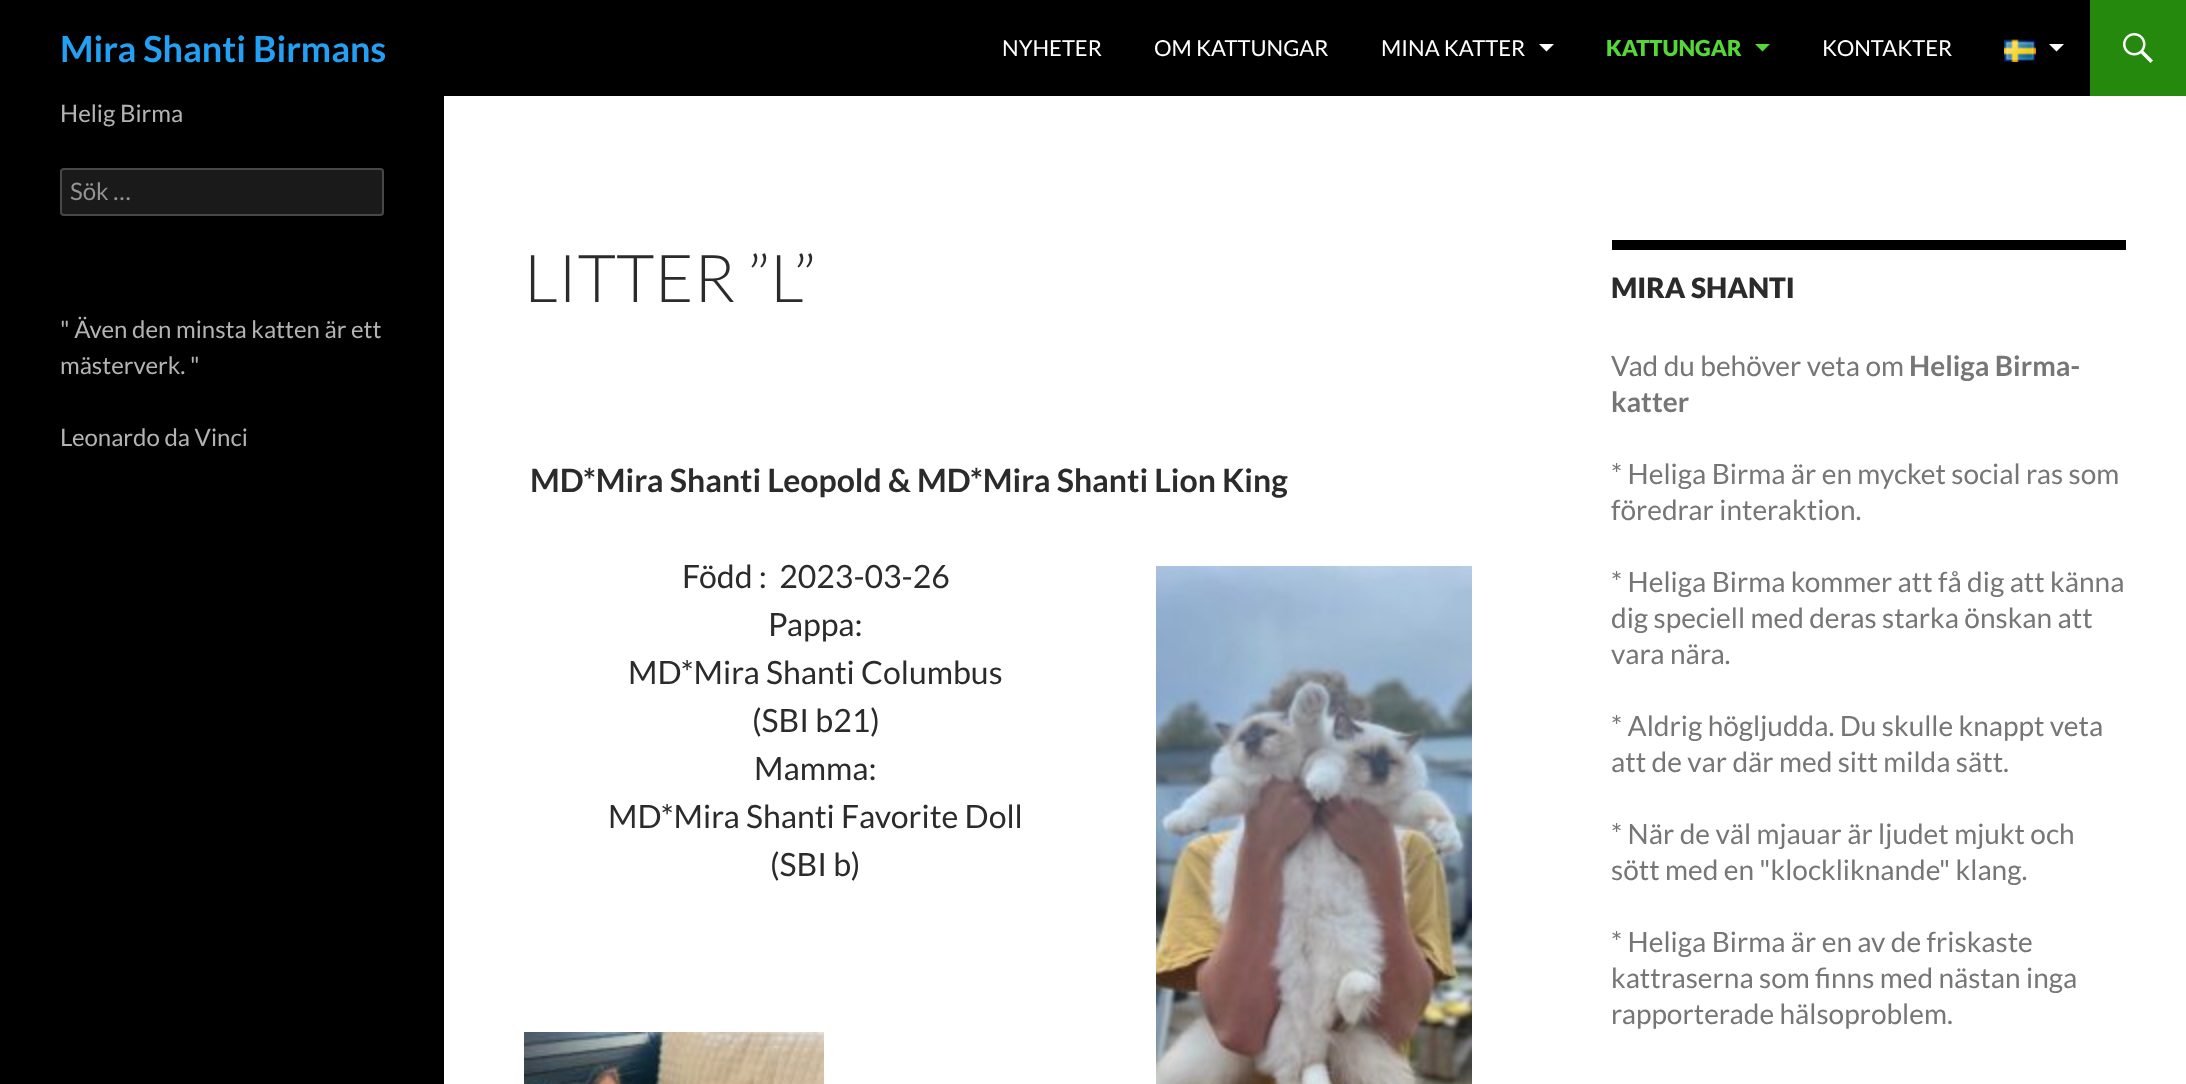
async function draw(canvas) {
  canvas.width = 2186;
  canvas.height = 1084;
  const ctx = canvas.getContext('2d');
  ctx.miterLimit = 4;
  ctx.fontKerning = 'normal';
  function label(s, x, y, font, color) {
    ctx.font = font;
    ctx.fillStyle = color;
    ctx.fillText(s, x, y);
  }
  function rect(x, y, w, h, color) {
    ctx.fillStyle = color;
    ctx.fillRect(x, y, w, h);
  }
  function roundedRect(x, y, w, h, r, color) {
    ctx.fillStyle = color;
    ctx.beginPath();
    ctx.roundRect(x, y, w, h, r);
    ctx.fill();
  }
  async function image(src, x, y, w, h) {
    const img = new Image();
    img.src = src;
    await img.decode();
    ctx.drawImage(img, x, y, w, h);
  }
  let path;

  rect(0, 0, 2186, 1084, '#fff');
  rect(0, 0, 2090, 96, '#000');
  label('Mira Shanti Birmans', 60, 62, 'bold 36px Lato', '#22a0f4');
  label('NYHETER', 1002, 56, '22px Lato', '#fff');
  label('OM KATTUNGAR', 1154, 56, '22px Lato', '#fff');
  label('MINA KATTER', 1381, 56, '22px Lato', '#fff');
  path = new Path2D('M1539 44L1546.5 51.5L1554 44Z');
  ctx.fill(path);
  label('KATTUNGAR', 1606, 56, '900 22px Lato', '#55d737');
  path = new Path2D('M1755 44L1762.5 51.5L1770 44Z');
  ctx.fill(path);
  label('KONTAKTER', 1822, 56, '22px Lato', '#fff');
  await image('assets/img1.png', 2004, 39, 32, 23);
  path = new Path2D('M2049 44L2056.5 51.5L2064 44Z');
  ctx.fill(path);
  rect(2090, 0, 96, 96, '#24890d');
  await image('assets/img2.png', 2123, 33, 30, 30);
  rect(0, 96, 444, 988, '#000');
  label('Helig Birma', 60, 122, '24px Lato', '#b3b3b3');
  roundedRect(60, 168, 324, 48, 4, '#1a1a1a');
  ctx.beginPath();
  ctx.roundRect(61, 169, 322, 46, 3);
  ctx.strokeStyle = '#ffffff33';
  ctx.lineWidth = 2;
  ctx.stroke();
  label('Sök …', 70, 200, '24px Lato', '#939393');
  label('" Även den minsta katten är ett', 60, 338, '24px Lato', '#b3b3b3');
  label('mästerverk. "', 60, 374, '24px Lato', '#b3b3b3');
  label('Leonardo da Vinci', 60, 446, '24px Lato', '#b3b3b3');
  label('LITTER ”L”', 524, 302, '300 66px Lato', '#2b2b2b');
  label('MD*Mira Shanti Leopold & MD*Mira Shanti Lion King', 530, 492, 'bold 32px Lato', '#2b2b2b');
  label('Född :  2023-03-26', 682, 588, '32px Lato', '#2b2b2b');
  await image('assets/img3.png', 1156, 566, 316, 518);
  label('Pappa:', 768, 636, '32px Lato', '#2b2b2b');
  label('MD*Mira Shanti Columbus', 628, 684, '32px Lato', '#2b2b2b');
  label('(SBI b21)', 752, 732, '32px Lato', '#2b2b2b');
  label('Mamma:', 754, 780, '32px Lato', '#2b2b2b');
  label('MD*Mira Shanti Favorite Doll', 608, 828, '32px Lato', '#2b2b2b');
  label('(SBI b)', 770, 876, '32px Lato', '#2b2b2b');
  await image('assets/img4.png', 524, 1032, 300, 52);
  rect(1612, 240, 514, 10, '#000');
  label('MIRA SHANTI', 1611, 298, '900 28px Lato', '#2b2b2b');
  label('Vad du behöver veta om', 1611, 376, '28px Lato', '#767676');
  label('Heliga Birma-', 1909, 376, 'bold 28px Lato', '#767676');
  label('katter', 1611, 412, 'bold 28px Lato', '#767676');
  label('* Heliga Birma är en mycket social ras som', 1611, 484, '28px Lato', '#767676');
  label('föredrar interaktion.', 1611, 520, '28px Lato', '#767676');
  label('* Heliga Birma kommer att få dig att känna', 1611, 592, '28px Lato', '#767676');
  label('dig speciell med deras starka önskan att', 1611, 628, '28px Lato', '#767676');
  label('vara nära.', 1611, 664, '28px Lato', '#767676');
  label('* Aldrig högljudda. Du skulle knappt veta', 1611, 736, '28px Lato', '#767676');
  label('att de var där med sitt milda sätt.', 1611, 772, '28px Lato', '#767676');
  label('* När de väl mjauar är ljudet mjukt och', 1611, 844, '28px Lato', '#767676');
  label('sött med en "klockliknande" klang.', 1611, 880, '28px Lato', '#767676');
  label('* Heliga Birma är en av de friskaste', 1611, 952, '28px Lato', '#767676');
  label('kattraserna som finns med nästan inga', 1611, 988, '28px Lato', '#767676');
  label('rapporterade hälsoproblem.', 1611, 1024, '28px Lato', '#767676');
}

draw(document.querySelector('canvas'));
